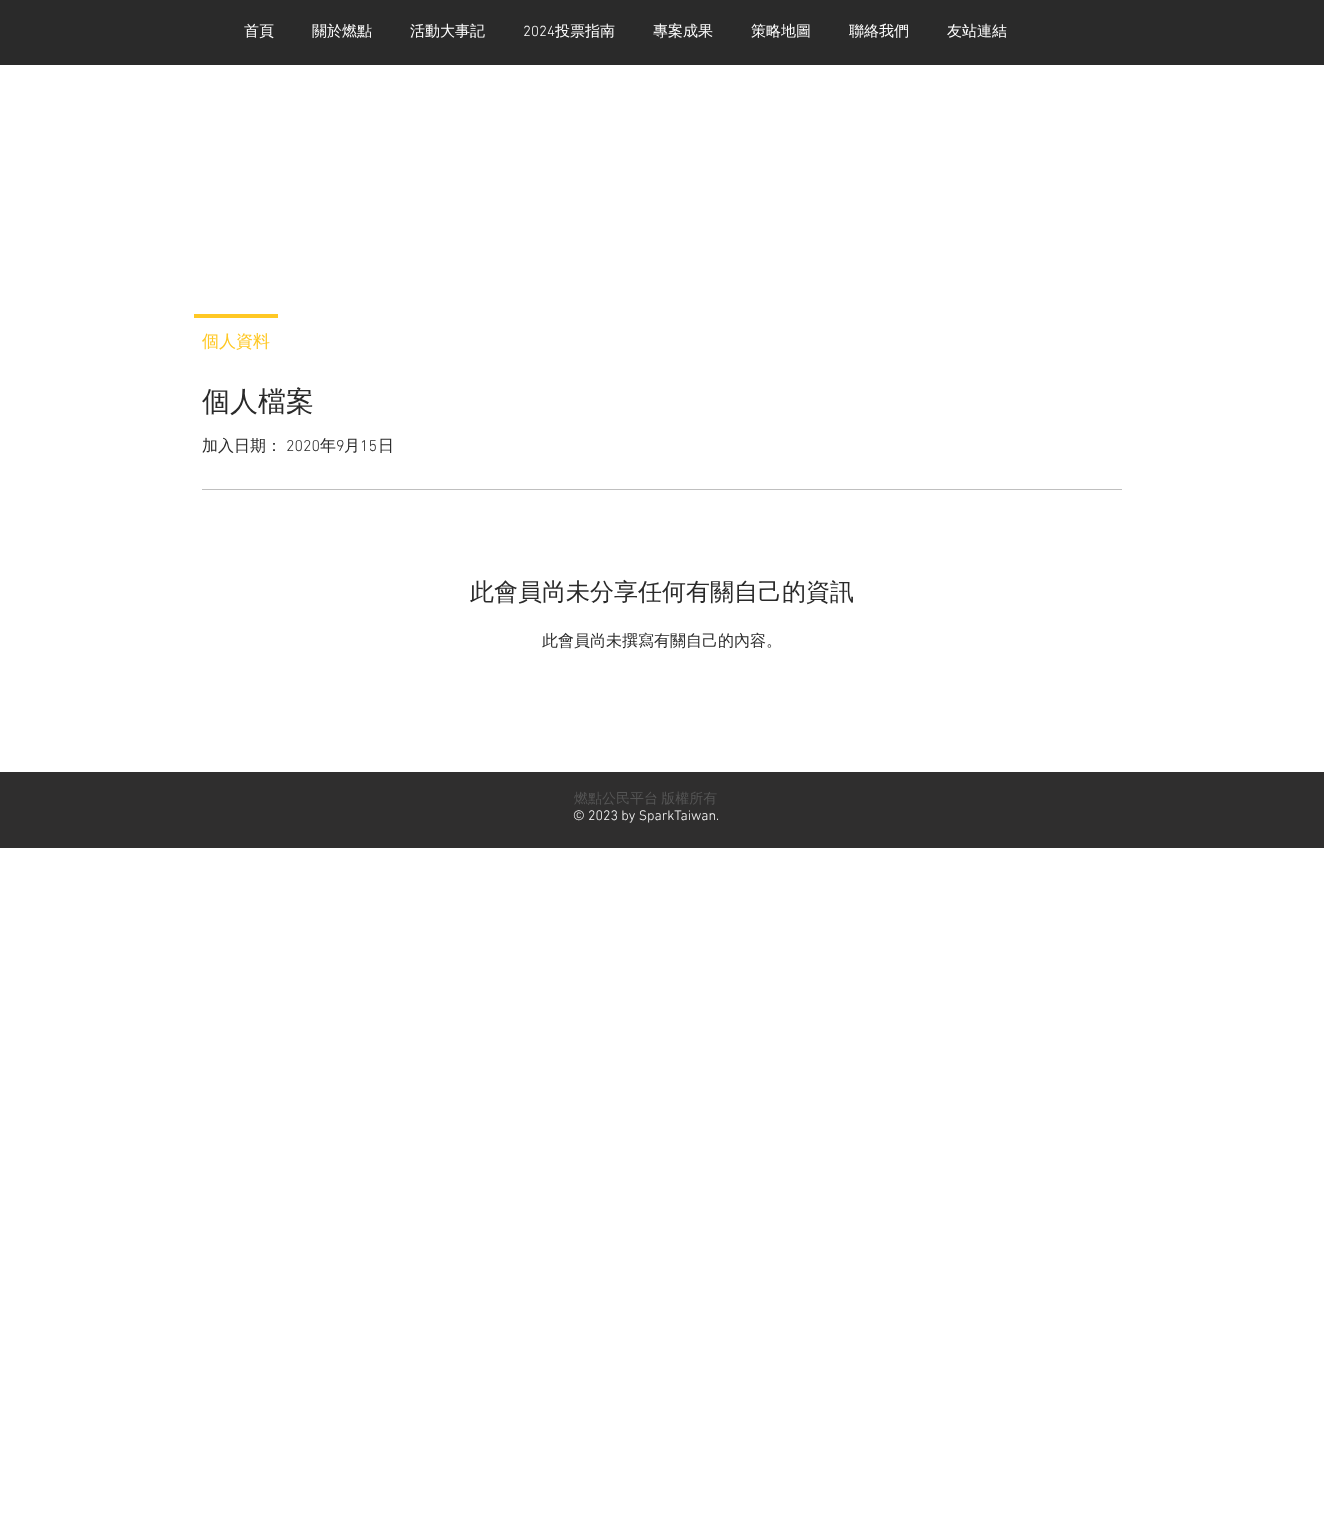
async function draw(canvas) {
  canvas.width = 1324;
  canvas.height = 1529;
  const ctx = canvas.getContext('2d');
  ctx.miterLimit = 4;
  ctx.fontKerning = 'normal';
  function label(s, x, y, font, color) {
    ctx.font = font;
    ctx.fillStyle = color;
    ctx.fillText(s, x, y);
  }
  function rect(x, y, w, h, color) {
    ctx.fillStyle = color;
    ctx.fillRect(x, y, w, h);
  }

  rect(0, 0, 1324, 1529, '#fff');
  rect(0, 0, 1324, 65, '#2a2a2a');
  label('首頁', 244, 36, '500 15px WenQuanYi Zen Hei', '#fff');
  label('關於燃點', 312, 36, '500 15px WenQuanYi Zen Hei', '#fff');
  label('活動大事記', 410, 36, '500 15px WenQuanYi Zen Hei', '#fff');
  label('2024', 523, 36, '300 15px "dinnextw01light"', '#fff');
  label('投票指南', 555, 36, '500 15px WenQuanYi Zen Hei', '#fff');
  label('專案成果', 653, 36, '500 15px WenQuanYi Zen Hei', '#fff');
  label('策略地圖', 751, 36, '500 15px WenQuanYi Zen Hei', '#fff');
  label('聯絡我們', 849, 36, '500 15px WenQuanYi Zen Hei', '#fff');
  label('友站連結', 947, 36, '500 15px WenQuanYi Zen Hei', '#fff');
  rect(194, 314, 84, 4, '#ffc824');
  label('個人資料', 202, 347, '500 17px WenQuanYi Zen Hei', '#ffc824');
  label('個人檔案', 202, 411, '500 28px WenQuanYi Zen Hei', '#2a2a2a');
  label('加入日期：', 202, 451, '500 16px WenQuanYi Zen Hei', '#2a2a2a');
  label('2020', 286, 451, '300 16px "dinnextw01light"', '#2a2a2a');
  label('年', 320, 451, '500 16px WenQuanYi Zen Hei', '#2a2a2a');
  label('9', 336, 451, '300 16px "dinnextw01light"', '#2a2a2a');
  label('月', 344, 451, '500 16px WenQuanYi Zen Hei', '#2a2a2a');
  label('15', 360, 451, '300 16px "dinnextw01light"', '#2a2a2a');
  label('日', 378, 451, '500 16px WenQuanYi Zen Hei', '#2a2a2a');
  rect(202, 489, 920, 1, '#bfbfbf');
  label('此會員尚未分享任何有關自己的資訊', 470, 600, '500 24px WenQuanYi Zen Hei', '#2a2a2a');
  label('此會員尚未撰寫有關自己的內容。', 542, 646, '500 16px WenQuanYi Zen Hei', '#2a2a2a');
  rect(0, 772, 1324, 76, '#2f2e2e');
  ctx.wordSpacing = '-1px';
  label('燃點公民平台 版權所有', 574, 803, '500 14px WenQuanYi Zen Hei', '#555');
  ctx.wordSpacing = '0px';
  label('© 2023 by SparkTaiwan.', 573, 820, '300 14px "dinnextw01light"', '#fff');
}

draw(document.querySelector('canvas'));
